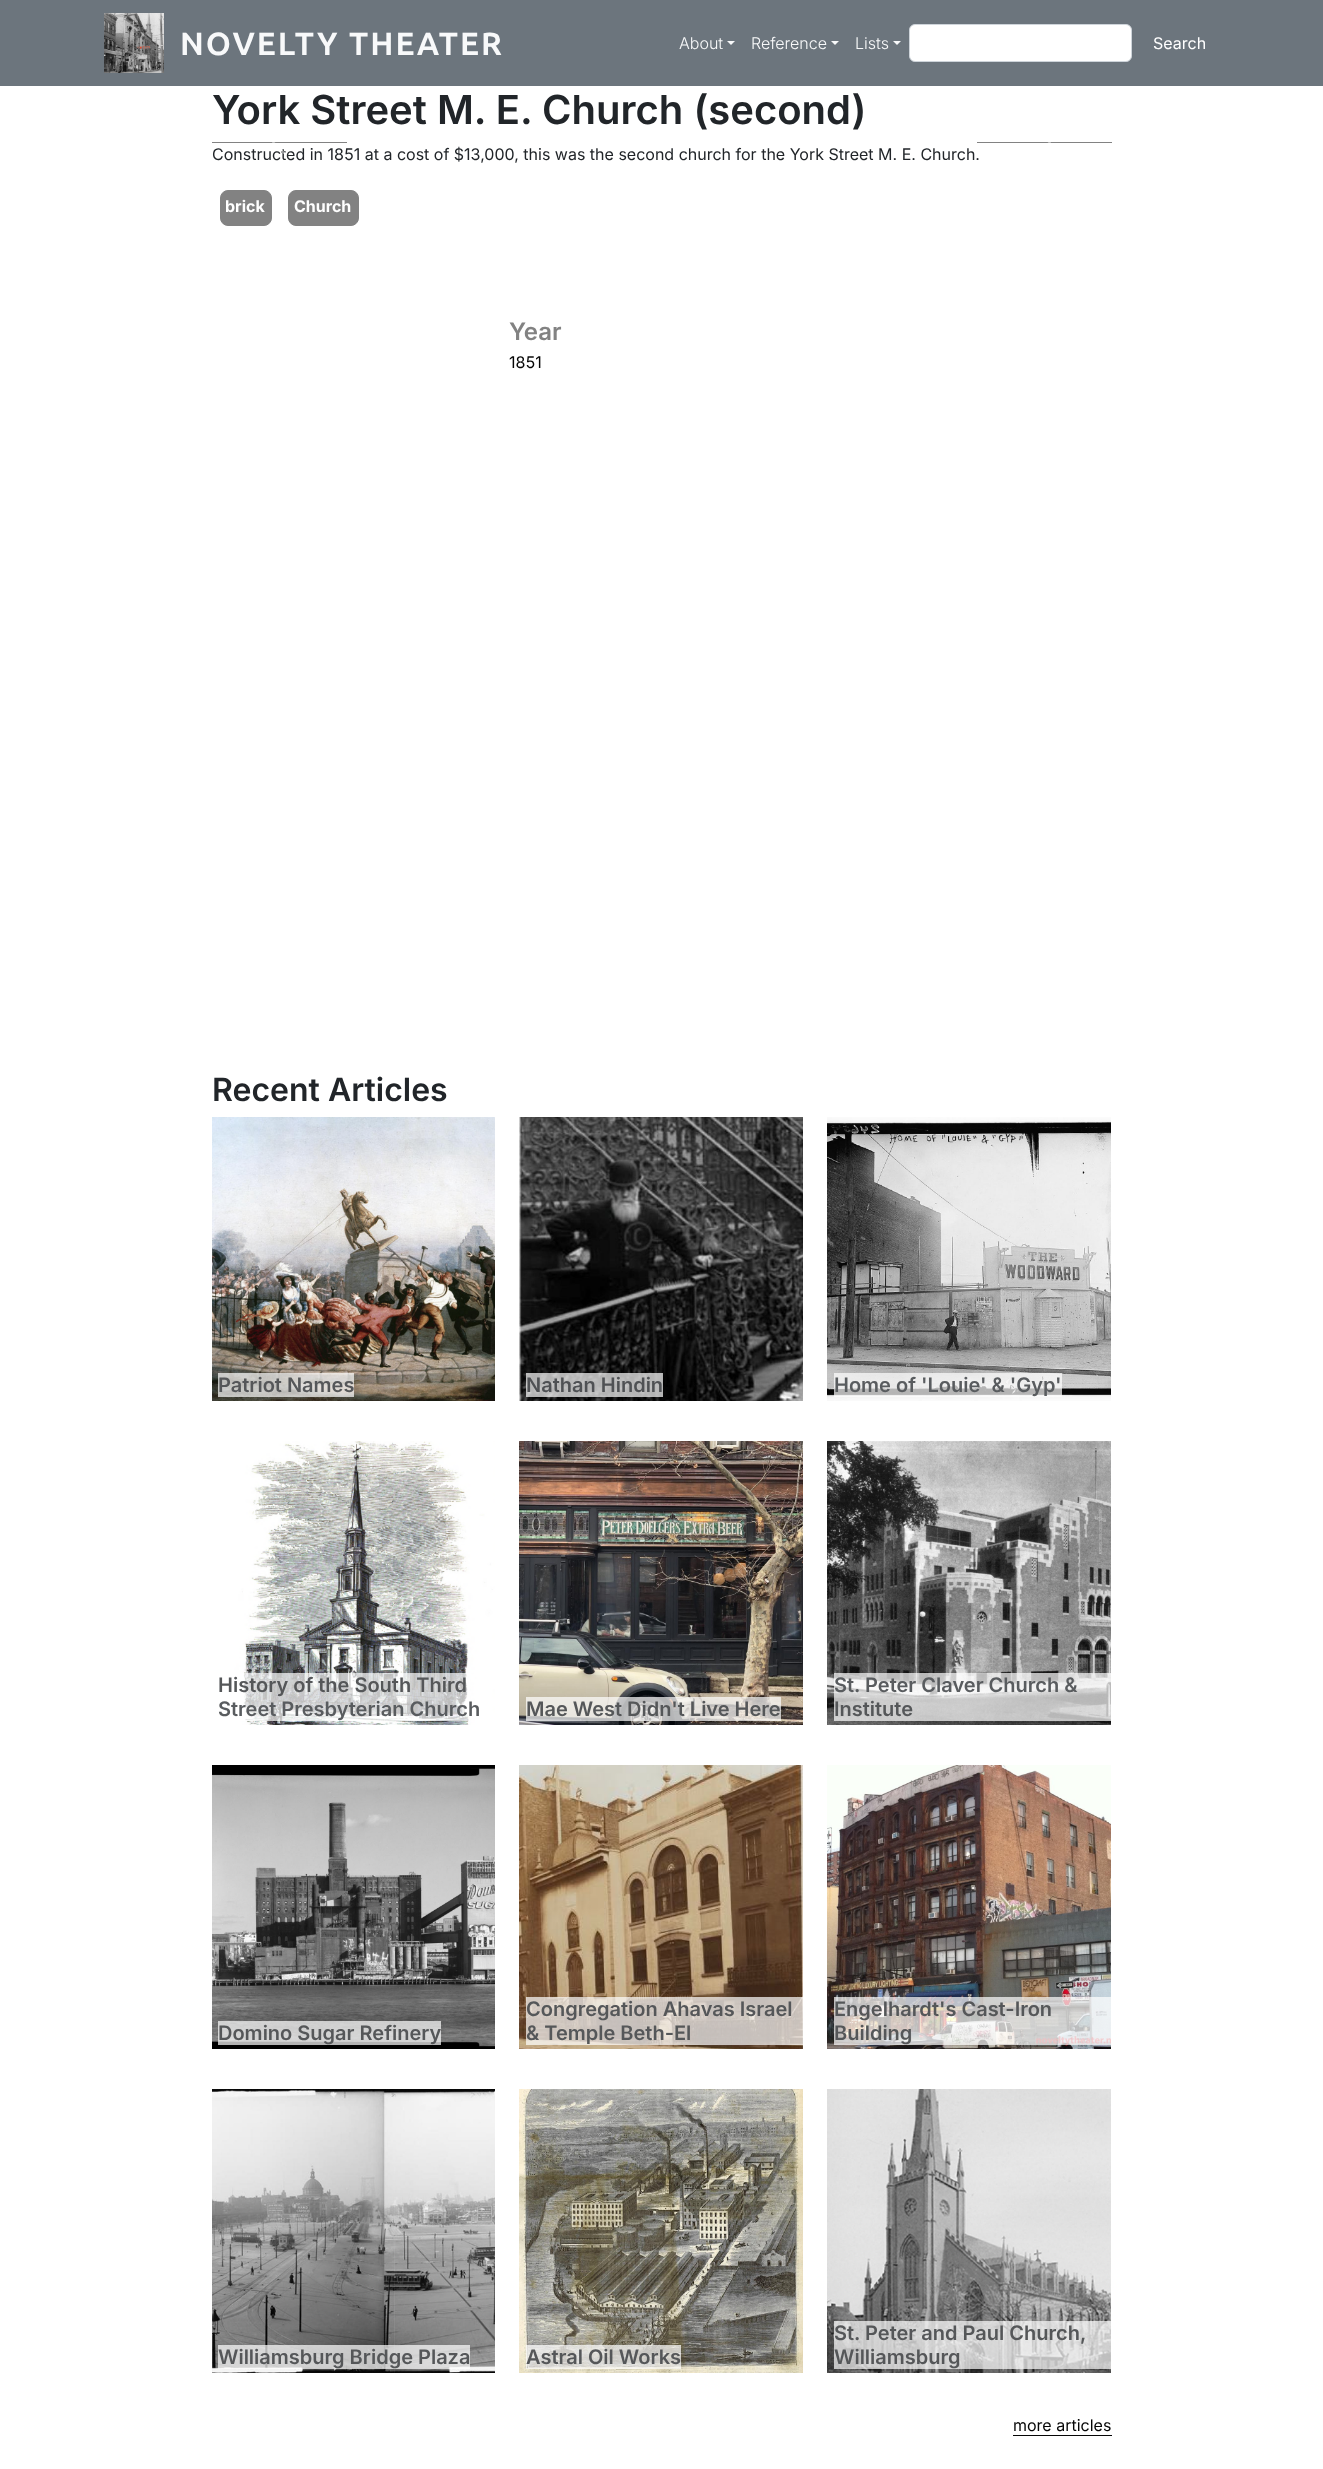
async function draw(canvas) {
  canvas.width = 1323;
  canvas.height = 2469;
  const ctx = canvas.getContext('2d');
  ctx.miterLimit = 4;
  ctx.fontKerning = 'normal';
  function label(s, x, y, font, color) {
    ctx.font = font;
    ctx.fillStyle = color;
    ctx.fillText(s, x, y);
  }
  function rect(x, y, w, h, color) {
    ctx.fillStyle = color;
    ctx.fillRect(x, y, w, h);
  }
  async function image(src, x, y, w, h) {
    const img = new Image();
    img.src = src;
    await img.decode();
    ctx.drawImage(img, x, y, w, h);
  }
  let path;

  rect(0, 0, 1323, 2469, '#fff');
  rect(0, 0, 1323, 86, '#6c757d');
  await image('assets/img1.png', 104, 13, 60, 60);
  ctx.letterSpacing = '2px';
  label('NOVELTY THEATER', 180, 55, 'bold 32px Ubuntu', '#f8f9fa');
  ctx.letterSpacing = '0px';
  label('About', 679, 49, '300 16px Inter', '#f8f9fa');
  path = new Path2D('M727 41H735L731 45Z');
  ctx.fill(path);
  label('Reference', 751, 49, '300 16px Inter', '#f8f9fa');
  path = new Path2D('M831 41H839L835 45Z');
  ctx.fill(path);
  label('Lists', 855, 49, '300 16px Inter', '#f8f9fa');
  path = new Path2D('M893 41H901L897 45Z');
  ctx.fill(path);
  ctx.fillStyle = '#fff';
  ctx.beginPath();
  ctx.roundRect(909.5, 24.5, 222, 37, 5.5);
  ctx.fill();
  ctx.strokeStyle = '#ced4da';
  ctx.stroke();
  label('Search', 1153, 49, '16px Inter', '#fff');
  label('York Street M. E. Church (second)', 212, 124, '600 40px Inter', '#212529');
  rect(212, 142, 135, 1, '#828282');
  label('Constructed in 1851 at a cost of $13,000, this was the second church for the York Street M. E. Church.', 212, 160, '16px Inter', '#212529');
  await image('assets/img2.png', 272, 142, 13, 12);
  rect(977, 142, 135, 1, '#828282');
  await image('assets/img3.png', 1047, 142, 4, 1);
  ctx.beginPath();
  ctx.roundRect(220.5, 190.5, 51, 35, 7.5);
  ctx.fill();
  ctx.strokeStyle = '#828282';
  ctx.stroke();
  label('brick', 225, 212, 'bold 16px Inter', '#fff');
  ctx.fillStyle = '#828282';
  ctx.beginPath();
  ctx.roundRect(288.5, 190.5, 70, 35, 7.5);
  ctx.fill();
  ctx.stroke();
  label('Church', 294, 212, 'bold 16px Inter', '#fff');
  label('Year', 509, 340, '600 24px Inter', '#828282');
  label('1851', 509, 368, '16px Inter', '#050505');
  label('Recent Articles', 212, 1101, '600 32px Inter', '#212529');
  await image('assets/img4.png', 212, 1117, 283, 284);
  rect(218, 1373, 136, 24, '#ffffffb3');
  label('Patriot Names', 218, 1392, '600 20px Inter', '#555759');
  await image('assets/img5.png', 519, 1117, 284, 284);
  rect(526, 1373, 137, 24, '#ffffffb3');
  label('Nathan Hindin', 526, 1392, '600 20px Inter', '#4f5154');
  await image('assets/img6.png', 827, 1117, 284, 284);
  rect(834, 1373, 228, 24, '#ffffffb3');
  label('Home of \'Louie\' & \'Gyp\'', 834, 1392, '600 20px Inter', '#595c5f');
  await image('assets/img7.png', 212, 1441, 283, 284);
  rect(226, 1673, 244, 48, '#ffffffb3');
  label('History of the South Third', 218, 1692, '600 20px Inter', '#555759');
  label('Street Presbyterian Church', 218, 1716, '600 20px Inter', '#595c5f');
  await image('assets/img8.png', 519, 1441, 284, 284);
  rect(526, 1697, 255, 24, '#ffffffb3');
  label('Mae West Didn\'t Live Here', 526, 1716, '600 20px Inter', '#555759');
  await image('assets/img9.png', 827, 1441, 284, 284);
  rect(834, 1673, 277, 48, '#ffffffb3');
  label('St. Peter Claver Church &', 834, 1692, '600 20px Inter', '#595c5f');
  label('Institute', 834, 1716, '600 20px Inter', '#555759');
  await image('assets/img10.png', 212, 1765, 283, 284);
  rect(218, 2021, 223, 24, '#ffffffb3');
  label('Domino Sugar Refinery', 218, 2040, '600 20px Inter', '#555759');
  await image('assets/img11.png', 519, 1765, 284, 284);
  rect(526, 1997, 277, 48, '#ffffffb3');
  label('Congregation Ahavas Israel', 526, 2016, '600 20px Inter', '#555759');
  label('& Temple Beth-El', 526, 2040, '600 20px Inter', '#555759');
  await image('assets/img12.png', 827, 1765, 284, 284);
  rect(834, 1997, 277, 48, '#ffffffb3');
  label('Engelhardt\'s Cast-Iron', 834, 2016, '600 20px Inter', '#555759');
  label('Building', 834, 2040, '600 20px Inter', '#555759');
  await image('assets/img13.png', 212, 2089, 283, 284);
  rect(218, 2345, 252, 24, '#ffffffb3');
  label('Williamsburg Bridge Plaza', 218, 2364, '600 20px Inter', '#555759');
  await image('assets/img14.png', 519, 2089, 284, 284);
  rect(526, 2345, 155, 24, '#ffffffb3');
  label('Astral Oil Works', 526, 2364, '600 20px Inter', '#555759');
  await image('assets/img15.png', 827, 2089, 284, 284);
  rect(834, 2321, 277, 48, '#ffffffb3');
  label('St. Peter and Paul Church,', 834, 2340, '600 20px Inter', '#555759');
  label('Williamsburg', 834, 2364, '600 20px Inter', '#555759');
  label('more articles', 1013, 2431, '16px Inter', '#050505');
  rect(1013, 2435, 99, 1, '#050505');
}

draw(document.querySelector('canvas'));
